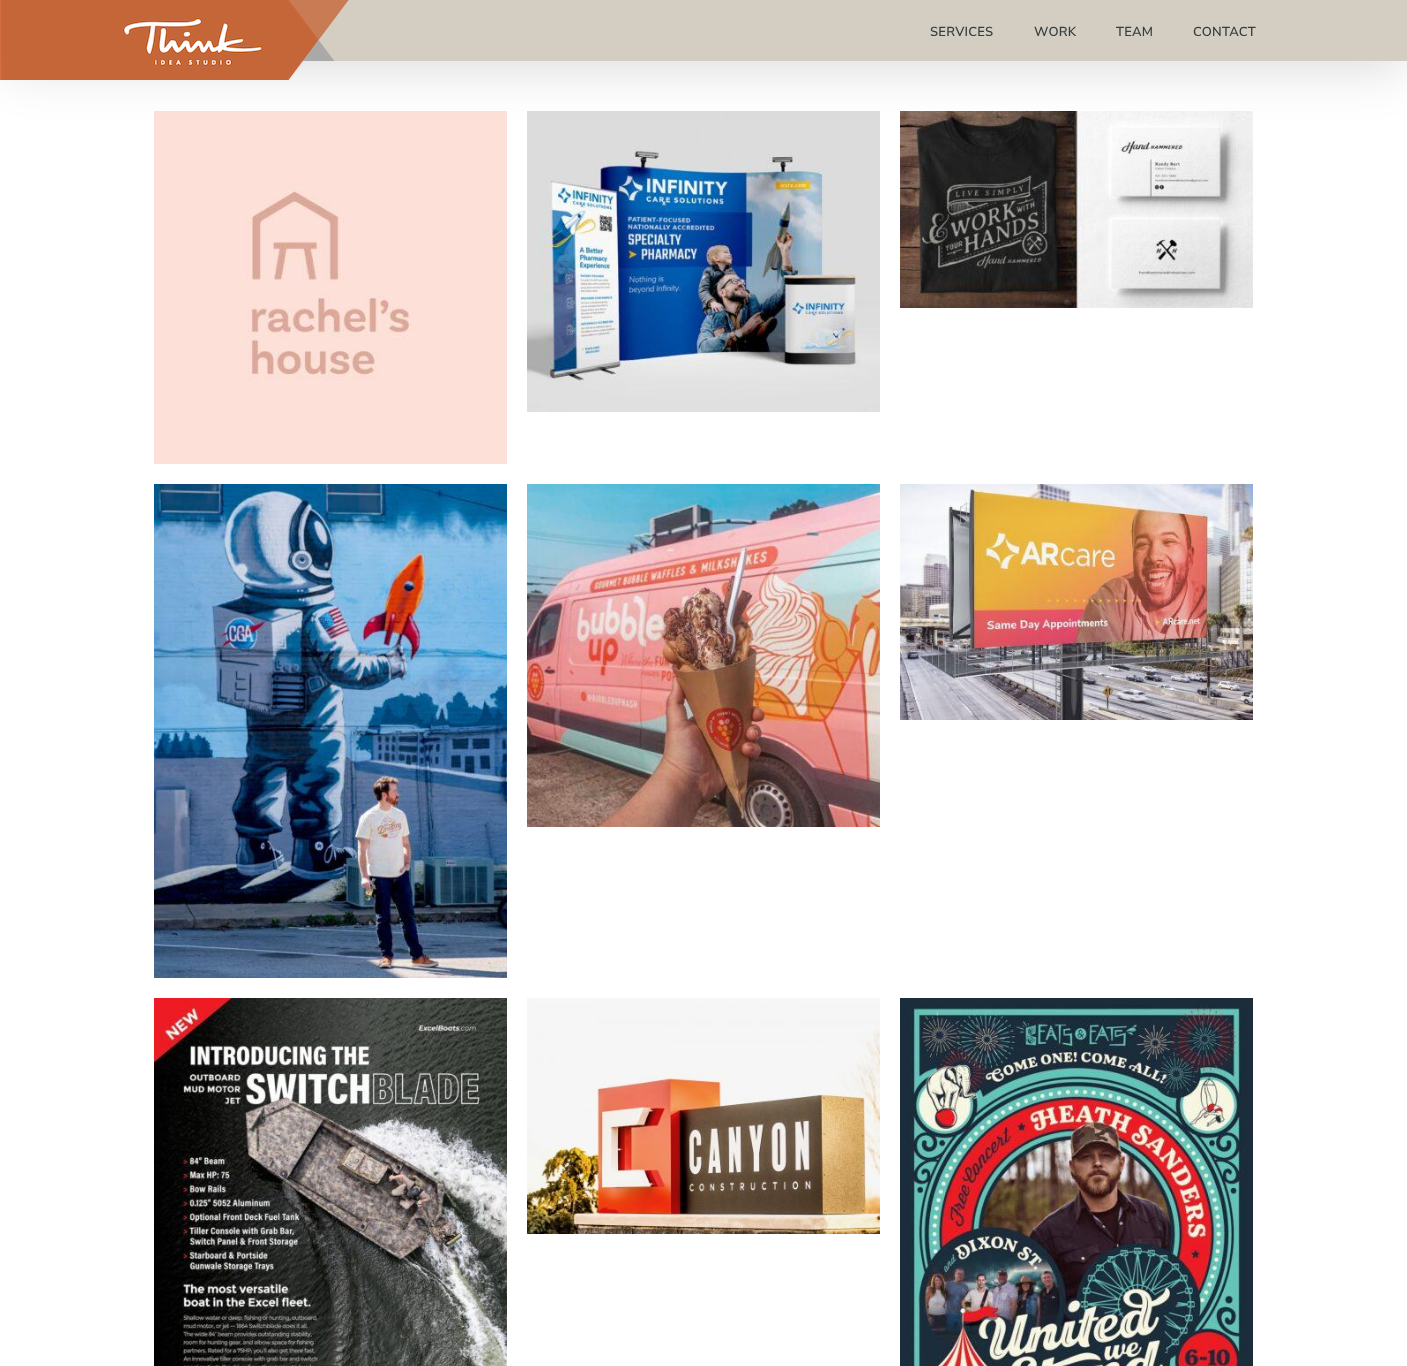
async function draw(canvas) {
  canvas.width = 1407;
  canvas.height = 1366;
  const ctx = canvas.getContext('2d');
  ctx.miterLimit = 4;
  ctx.fontKerning = 'normal';
  function label(s, x, y, font, color) {
    ctx.font = font;
    ctx.fillStyle = color;
    ctx.fillText(s, x, y);
  }
  function rect(x, y, w, h, color) {
    ctx.fillStyle = color;
    ctx.fillRect(x, y, w, h);
  }
  async function image(src, x, y, w, h) {
    const img = new Image();
    img.src = src;
    await img.decode();
    ctx.drawImage(img, x, y, w, h);
  }

  rect(0, 0, 1407, 1366, '#fff');
  await image('assets/img2.png', 154, 111, 353, 353);
  await image('assets/img3.png', 527, 111, 353, 301);
  await image('assets/img4.png', 900, 111, 353, 197);
  ctx.fillStyle = '#00000024';
  ctx.filter = 'blur(25px)';
  ctx.beginPath();
  ctx.rect(2, 12, 1403, 57);
  ctx.fill();
  ctx.filter = 'none';
  rect(1, 0, 1406, 61, '#d4cec2');
  await image('assets/img1.png', 0, 0, 349, 80);
  ctx.letterSpacing = '0.25px';
  label('SERVICES', 930, 36, '600 13px Nunito Sans', '#363f40');
  label('WORK', 1034, 36, '600 13px Nunito Sans', '#363f40');
  label('TEAM', 1116, 36, '600 13px Nunito Sans', '#363f40');
  label('CONTACT', 1193, 36, '600 13px Nunito Sans', '#363f40');
  await image('assets/img5.png', 154, 484, 353, 494);
  await image('assets/img6.png', 527, 484, 353, 343);
  await image('assets/img7.png', 900, 484, 353, 236);
  await image('assets/img8.png', 154, 998, 353, 368);
  await image('assets/img9.png', 527, 998, 353, 236);
  await image('assets/img10.png', 900, 998, 353, 368);
}

draw(document.querySelector('canvas'));
